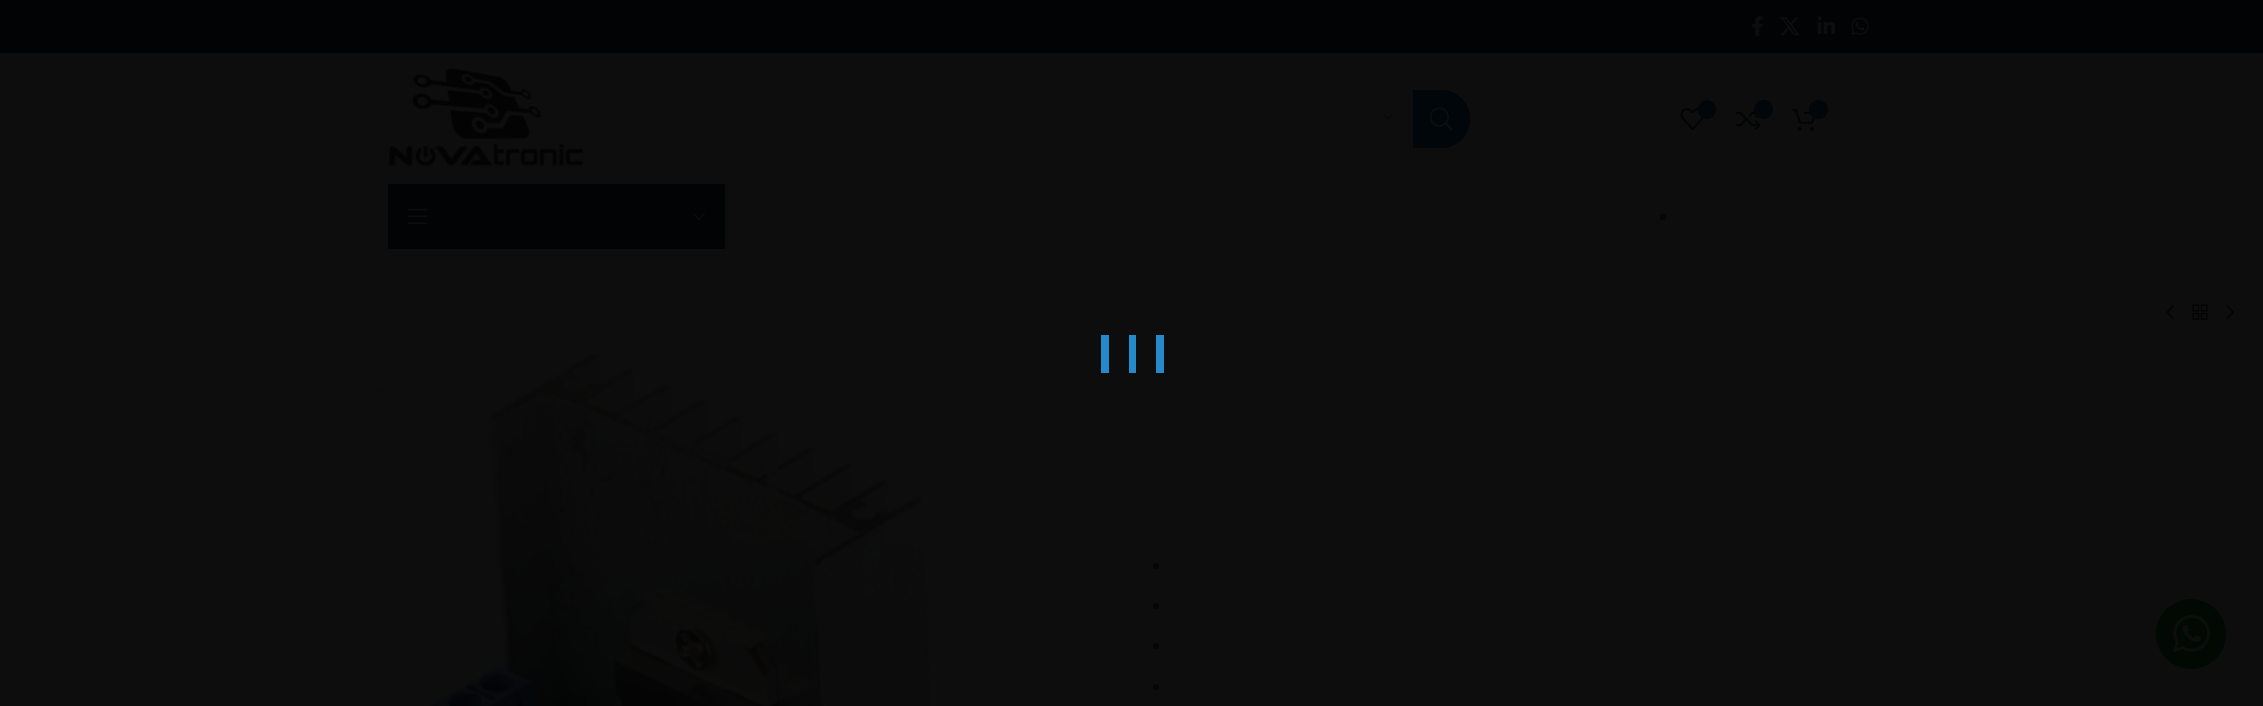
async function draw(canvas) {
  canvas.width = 2263;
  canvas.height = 706;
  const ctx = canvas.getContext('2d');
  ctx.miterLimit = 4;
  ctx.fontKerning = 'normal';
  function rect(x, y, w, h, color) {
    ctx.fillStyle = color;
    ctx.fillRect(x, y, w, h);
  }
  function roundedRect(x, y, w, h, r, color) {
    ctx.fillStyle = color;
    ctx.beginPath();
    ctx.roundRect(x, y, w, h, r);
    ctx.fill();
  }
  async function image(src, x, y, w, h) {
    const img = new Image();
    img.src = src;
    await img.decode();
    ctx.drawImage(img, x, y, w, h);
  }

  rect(0, 0, 2263, 706, '#0d0d0d');
  rect(0, 0, 2263, 53, '#020305');
  await image('assets/img1.png', 1752, 16, 11, 21);
  await image('assets/img2.png', 1780, 17, 20, 19);
  await image('assets/img3.png', 1817, 16, 18, 18);
  await image('assets/img4.png', 1851, 17, 18, 18);
  await image('assets/img5.png', 389, 67, 195, 100);
  await image('assets/img6.png', 1383, 114, 10, 6);
  ctx.fillStyle = '#00060a';
  ctx.beginPath();
  ctx.roundRect(1413, 90, 57, 58, [0, 28.5, 28.5, 0]);
  ctx.fill();
  await image('assets/img7.png', 1429, 107, 24, 24);
  await image('assets/img8.png', 1680, 108, 24, 22);
  roundedRect(1698, 100, 18, 19, 9, '#00060a');
  await image('assets/img9.png', 1736, 109, 25, 21);
  ctx.beginPath();
  ctx.arc(1763.5, 109.5, 9.5, 0, 2 * Math.PI);
  ctx.fill();
  await image('assets/img10.png', 1792, 108, 23, 23);
  ctx.beginPath();
  ctx.arc(1818.5, 109.5, 9.5, 0, 2 * Math.PI);
  ctx.fill();
  rect(388, 184, 337, 65, '#020305');
  await image('assets/img11.png', 407, 208, 21, 17);
  await image('assets/img12.png', 692, 213, 14, 7);
  ctx.fillStyle = '#060606';
  ctx.beginPath();
  ctx.arc(1663, 217, 3, 0, 2 * Math.PI);
  ctx.fill();
  await image('assets/img13.png', 376, 346, 555, 360);
  await image('assets/img14.png', 2166, 305, 8, 15);
  await image('assets/img15.png', 2192, 304, 16, 16);
  await image('assets/img16.png', 2226, 305, 8, 15);
  ctx.beginPath();
  ctx.arc(1156, 566, 3, 0, 2 * Math.PI);
  ctx.fill();
  ctx.beginPath();
  ctx.arc(1156, 606, 3, 0, 2 * Math.PI);
  ctx.fill();
  ctx.beginPath();
  ctx.arc(1156, 646, 3, 0, 2 * Math.PI);
  ctx.fill();
  ctx.beginPath();
  ctx.arc(1156, 687, 3, 0, 2 * Math.PI);
  ctx.fill();
  rect(1101, 335, 8, 38, '#248acc');
  rect(1129, 335, 7, 38, '#248acc');
  rect(1156, 335, 8, 38, '#248acc');
  ctx.fillStyle = '#020903';
  ctx.beginPath();
  ctx.arc(2191, 634, 35, 0, 2 * Math.PI);
  ctx.fill();
  await image('assets/img17.png', 2173, 615, 37, 38);
}

draw(document.querySelector('canvas'));
